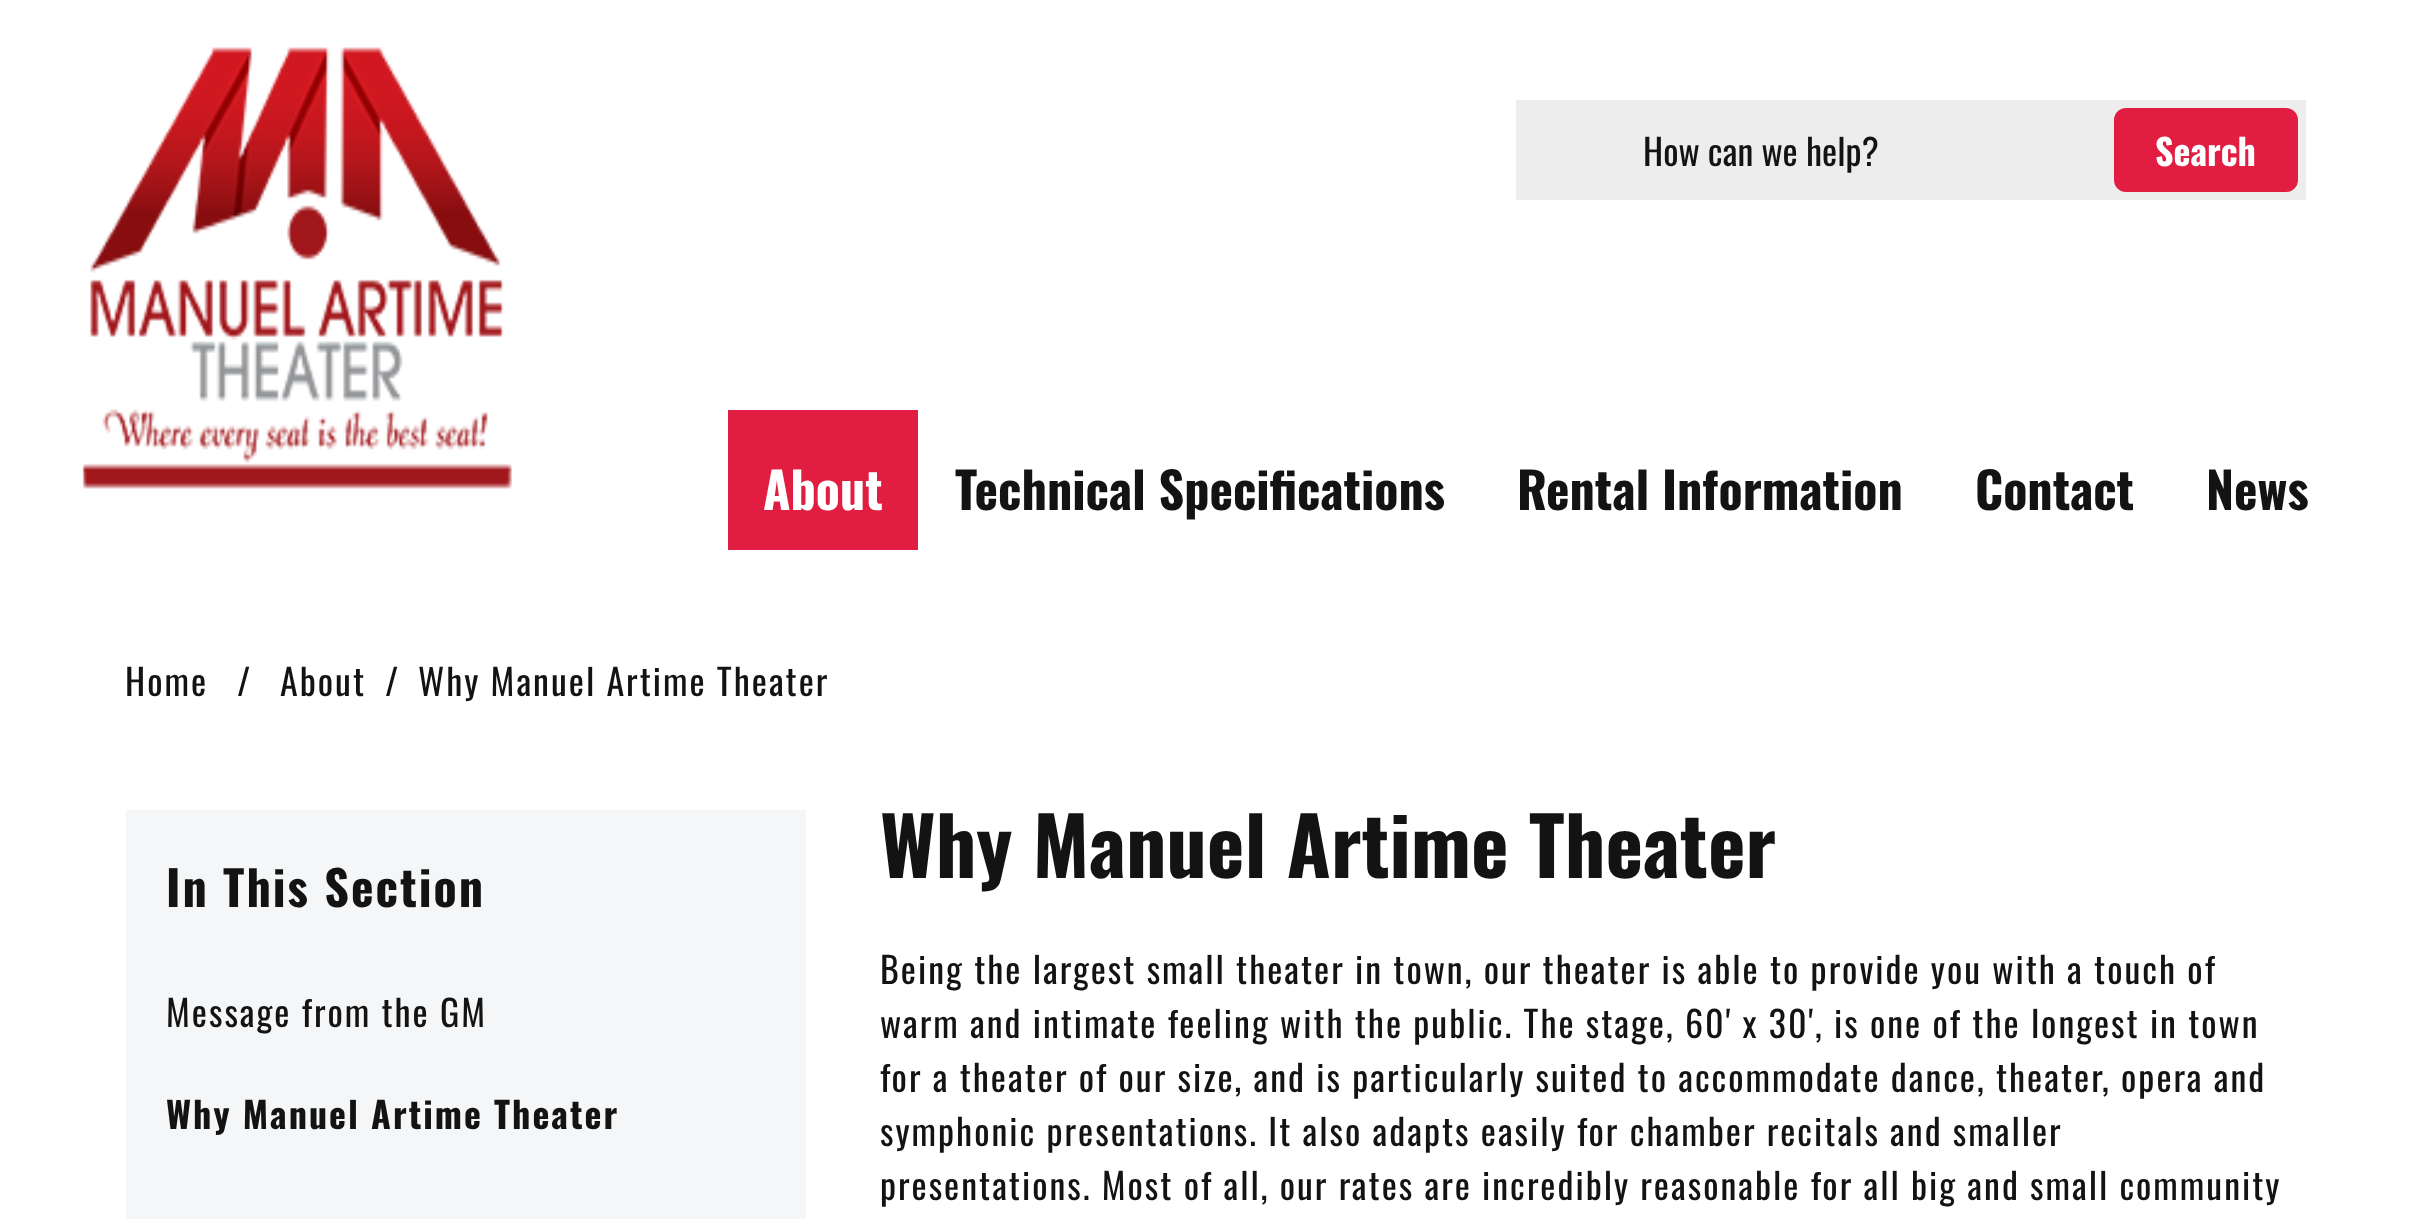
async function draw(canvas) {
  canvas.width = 2410;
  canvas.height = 1219;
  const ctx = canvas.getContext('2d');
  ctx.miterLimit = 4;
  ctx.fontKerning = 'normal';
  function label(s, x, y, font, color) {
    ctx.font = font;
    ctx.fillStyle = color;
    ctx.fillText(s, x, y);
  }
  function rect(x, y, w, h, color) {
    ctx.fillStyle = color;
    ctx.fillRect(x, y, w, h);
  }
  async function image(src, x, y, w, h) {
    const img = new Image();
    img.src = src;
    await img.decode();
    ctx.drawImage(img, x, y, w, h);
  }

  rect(0, 0, 2410, 1219, '#fff');
  await image('assets/img1.png', 82, 47, 430, 442);
  rect(1516, 100, 790, 100, '#ededed');
  label('How can we help?', 1643, 166, '36px Oswald', '#131313');
  ctx.fillStyle = '#e11d42';
  ctx.beginPath();
  ctx.roundRect(2110, 104, 192, 92, 16);
  ctx.fill();
  ctx.strokeStyle = '#ededed';
  ctx.lineWidth = 8;
  ctx.stroke();
  label('Search', 2155, 166, 'bold 36px Oswald', '#fff');
  rect(728, 410, 190, 140, '#e11d42');
  label('About', 763, 510, 'bold 50px Oswald', '#fff');
  label('Technical Specifications', 955, 510, 'bold 50px Oswald', '#131313');
  label('Rental Information', 1517, 510, 'bold 50px Oswald', '#131313');
  label('Contact', 1975, 510, 'bold 50px Oswald', '#131313');
  label('News', 2206, 510, 'bold 50px Oswald', '#131313');
  ctx.letterSpacing = '2px';
  label('Home', 125, 696, '36px Oswald', '#131313');
  label('/', 237, 696, '36px Oswald', '#131313');
  label('About', 280, 696, '36px Oswald', '#131313');
  label('/', 385, 696, '36px Oswald', '#131313');
  label('Why Manuel Artime Theater', 418, 696, '36px Oswald', '#131313');
  rect(126, 810, 680, 409, '#f4f6f8');
  label('In This Section', 166, 907, 'bold 48px Oswald', '#131313');
  label('Message from the GM', 166, 1027, '36px Oswald', '#131313');
  label('Why Manuel Artime Theater', 166, 1129, 'bold 36px Oswald', '#131313');
  ctx.letterSpacing = '0px';
  label('Why Manuel Artime Theater', 880, 878, 'bold 80px Oswald', '#131313');
  ctx.letterSpacing = '2px';
  label('Being the largest small theater in town, our theater is able to provide you with a touch of', 880, 984, '36px Oswald', '#131313');
  label('warm and intimate feeling with the public. The stage, 60\' x 30\', is one of the longest in town', 880, 1038, '36px Oswald', '#131313');
  label('for a theater of our size, and is particularly suited to accommodate dance, theater, opera and', 880, 1092, '36px Oswald', '#131313');
  label('symphonic presentations. It also adapts easily for chamber recitals and smaller', 880, 1146, '36px Oswald', '#131313');
  label('presentations. Most of all, our rates are incredibly reasonable for all big and small community', 880, 1200, '36px Oswald', '#131313');
}

draw(document.querySelector('canvas'));
